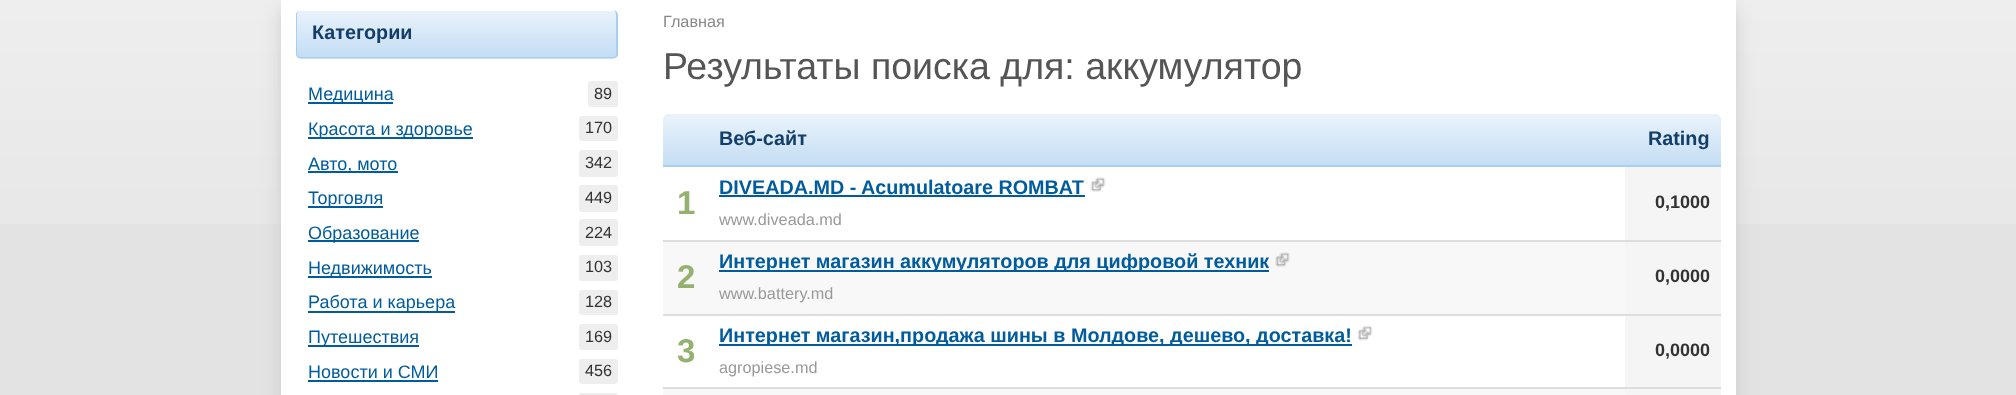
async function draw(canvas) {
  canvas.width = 2016;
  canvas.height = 395;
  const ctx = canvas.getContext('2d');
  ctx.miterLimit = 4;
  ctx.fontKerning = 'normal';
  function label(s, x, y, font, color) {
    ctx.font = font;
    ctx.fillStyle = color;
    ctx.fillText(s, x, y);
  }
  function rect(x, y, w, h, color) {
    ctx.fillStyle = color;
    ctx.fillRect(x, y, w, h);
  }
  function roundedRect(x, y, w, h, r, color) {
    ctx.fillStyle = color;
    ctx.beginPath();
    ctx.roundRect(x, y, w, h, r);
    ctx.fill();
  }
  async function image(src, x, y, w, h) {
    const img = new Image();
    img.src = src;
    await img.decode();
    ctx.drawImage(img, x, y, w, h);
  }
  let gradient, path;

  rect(0, 0, 2016, 395, '#e3e3e3');
  await image('assets/img1.png', 0, 0, 2016, 224);
  ctx.fillStyle = '#ccc';
  ctx.filter = 'blur(9px)';
  ctx.beginPath();
  ctx.roundRect(281, 8, 1455, 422, 8);
  ctx.fill();
  ctx.filter = 'none';
  rect(281, 0, 1455, 395, '#fff');
  roundedRect(296, 11, 322, 48, 5, '#c7dff5');
  ctx.save();
  ctx.beginPath();
  ctx.roundRect(296, 11, 322, 48, 5);
  ctx.clip();
  gradient = ctx.createLinearGradient(457, 10, 457, 57);
  gradient.addColorStop(0, '#eaf3fb');
  gradient.addColorStop(1, '#c3ddf4');
  ctx.fillStyle = gradient;
  ctx.beginPath();
  ctx.roundRect(296, 11, 322, 46, [5, 5, 0, 0]);
  ctx.fill();
  ctx.restore();
  ctx.fillStyle = '#a9cff0';
  path = new Path2D('M300 10H614C616 10 618 13 618 15V54C618 56 616 58 614 58H300C298 58 296 56 296 54V15C296 13 298 10 300 10ZM300 10H614C615 10 616 13 616 15V54C616 56 615 57 614 57H300C298 57 297 56 297 54V15C297 13 298 10 300 10Z');
  ctx.fill(path, 'evenodd');
  label('Категории', 312, 39, 'bold 19.8px Liberation Sans', '#123e67');
  rect(308, 102, 85, 2, '#005c9c');
  label('Медицина', 308, 100, '18px Liberation Sans', '#005c9c');
  roundedRect(588, 81, 30, 26, 3, '#eee');
  label('89', 594, 99, '16.25px Liberation Sans', '#333');
  rect(308, 137, 165, 2, '#005c9c');
  label('Красота и здоровье', 308, 135, '18px Liberation Sans', '#005c9c');
  roundedRect(579, 116, 39, 25, 3, '#eee');
  label('170', 585, 133, '16.25px Liberation Sans', '#333');
  rect(308, 171, 90, 2, '#005c9c');
  label('Авто, мото', 308, 170, '18px Liberation Sans', '#005c9c');
  roundedRect(579, 150, 39, 27, 3, '#eee');
  label('342', 585, 168, '16.25px Liberation Sans', '#333');
  rect(308, 206, 75, 2, '#005c9c');
  label('Торговля', 308, 204, '18px Liberation Sans', '#005c9c');
  roundedRect(579, 185, 39, 27, 3, '#eee');
  label('449', 585, 203, '16.25px Liberation Sans', '#333');
  rect(308, 240, 111, 2, '#005c9c');
  label('Образование', 308, 239, '18px Liberation Sans', '#005c9c');
  roundedRect(579, 219, 39, 27, 3, '#eee');
  label('224', 585, 238, '16.25px Liberation Sans', '#333');
  rect(308, 276, 124, 2, '#005c9c');
  label('Недвижимость', 308, 274, '18px Liberation Sans', '#005c9c');
  roundedRect(579, 255, 39, 26, 3, '#eee');
  label('103', 585, 272, '16.25px Liberation Sans', '#333');
  rect(308, 311, 147, 2, '#005c9c');
  label('Работа и карьера', 308, 308, '18px Liberation Sans', '#005c9c');
  roundedRect(579, 290, 39, 25, 3, '#eee');
  label('128', 585, 307, '16.25px Liberation Sans', '#333');
  rect(308, 345, 111, 2, '#005c9c');
  label('Путешествия', 308, 343, '18px Liberation Sans', '#005c9c');
  roundedRect(579, 324, 39, 26, 3, '#eee');
  label('169', 585, 342, '16.25px Liberation Sans', '#333');
  label('Новости и СМИ', 308, 378, '18px Liberation Sans', '#005c9c');
  rect(308, 380, 130, 2, '#005c9c');
  roundedRect(579, 359, 39, 25, 3, '#eee');
  label('456', 585, 376, '16.25px Liberation Sans', '#333');
  roundedRect(579, 393, 39, 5, 3, '#eee');
  label('Главная', 663, 27, '16.25px Liberation Sans', '#888');
  label('Результаты поиска для: аккумулятор', 663, 79, '37.5px Liberation Sans', '#555');
  gradient = ctx.createLinearGradient(1192, 114, 1192, 167);
  gradient.addColorStop(0, '#eaf3fb');
  gradient.addColorStop(1, '#c3ddf4');
  ctx.fillStyle = gradient;
  ctx.beginPath();
  ctx.roundRect(663, 114, 1058, 53, [5, 5, 0, 0]);
  ctx.fill();
  label('Веб-сайт', 719, 145, 'bold 19.8px Liberation Sans', '#123e67');
  rect(663, 165, 1058, 2, '#a9cff0');
  label('Rating', 1648, 145, 'bold 19.8px Liberation Sans', '#123e67');
  label('1', 677, 214, 'bold 33px Liberation Sans', '#95b16f');
  label('DIVEADA.MD -', 719, 194, 'bold 19.8px Liberation Sans', '#005c9c');
  rect(719, 195, 366, 2, '#005c9c');
  label('Acumulatoare ROMBAT', 861, 194, 'bold 19.8px Liberation Sans', '#005c9c');
  await image('assets/img2.png', 1090, 177, 16, 15);
  label('www.diveada.md', 719, 225, '16.25px Liberation Sans', '#999');
  rect(1625, 167, 96, 73, '#f5f5f5');
  rect(663, 240, 1058, 2, '#ddd');
  label('0,1000', 1655, 208, 'bold 18px Liberation Sans', '#333');
  rect(663, 242, 962, 72, '#f8f8f8');
  label('2', 677, 288, 'bold 33px Liberation Sans', '#95b16f');
  rect(719, 270, 550, 2, '#005c9c');
  label('Интернет магазин аккумуляторов для цифровой техник', 719, 268, 'bold 19.8px Liberation Sans', '#005c9c');
  await image('assets/img3.png', 1275, 252, 15, 15);
  label('www.battery.md', 719, 299, '16.25px Liberation Sans', '#999');
  rect(1625, 242, 96, 72, '#f5f5f5');
  rect(663, 314, 1058, 2, '#ddd');
  label('0,0000', 1655, 282, 'bold 18px Liberation Sans', '#333');
  label('3', 677, 362, 'bold 33px Liberation Sans', '#95b16f');
  rect(719, 344, 633, 2, '#005c9c');
  label('Интернет магазин,продажа шины в Молдове, дешево, доставка!', 719, 342, 'bold 19.8px Liberation Sans', '#005c9c');
  await image('assets/img4.png', 1357, 325, 16, 16);
  label('agropiese.md', 719, 373, '16.25px Liberation Sans', '#999');
  rect(1625, 316, 96, 71, '#f5f5f5');
  rect(663, 387, 1058, 2, '#ddd');
  label('0,0000', 1655, 356, 'bold 18px Liberation Sans', '#333');
  rect(663, 389, 962, 6, '#f8f8f8');
  rect(1625, 389, 96, 6, '#f5f5f5');
}

draw(document.querySelector('canvas'));
